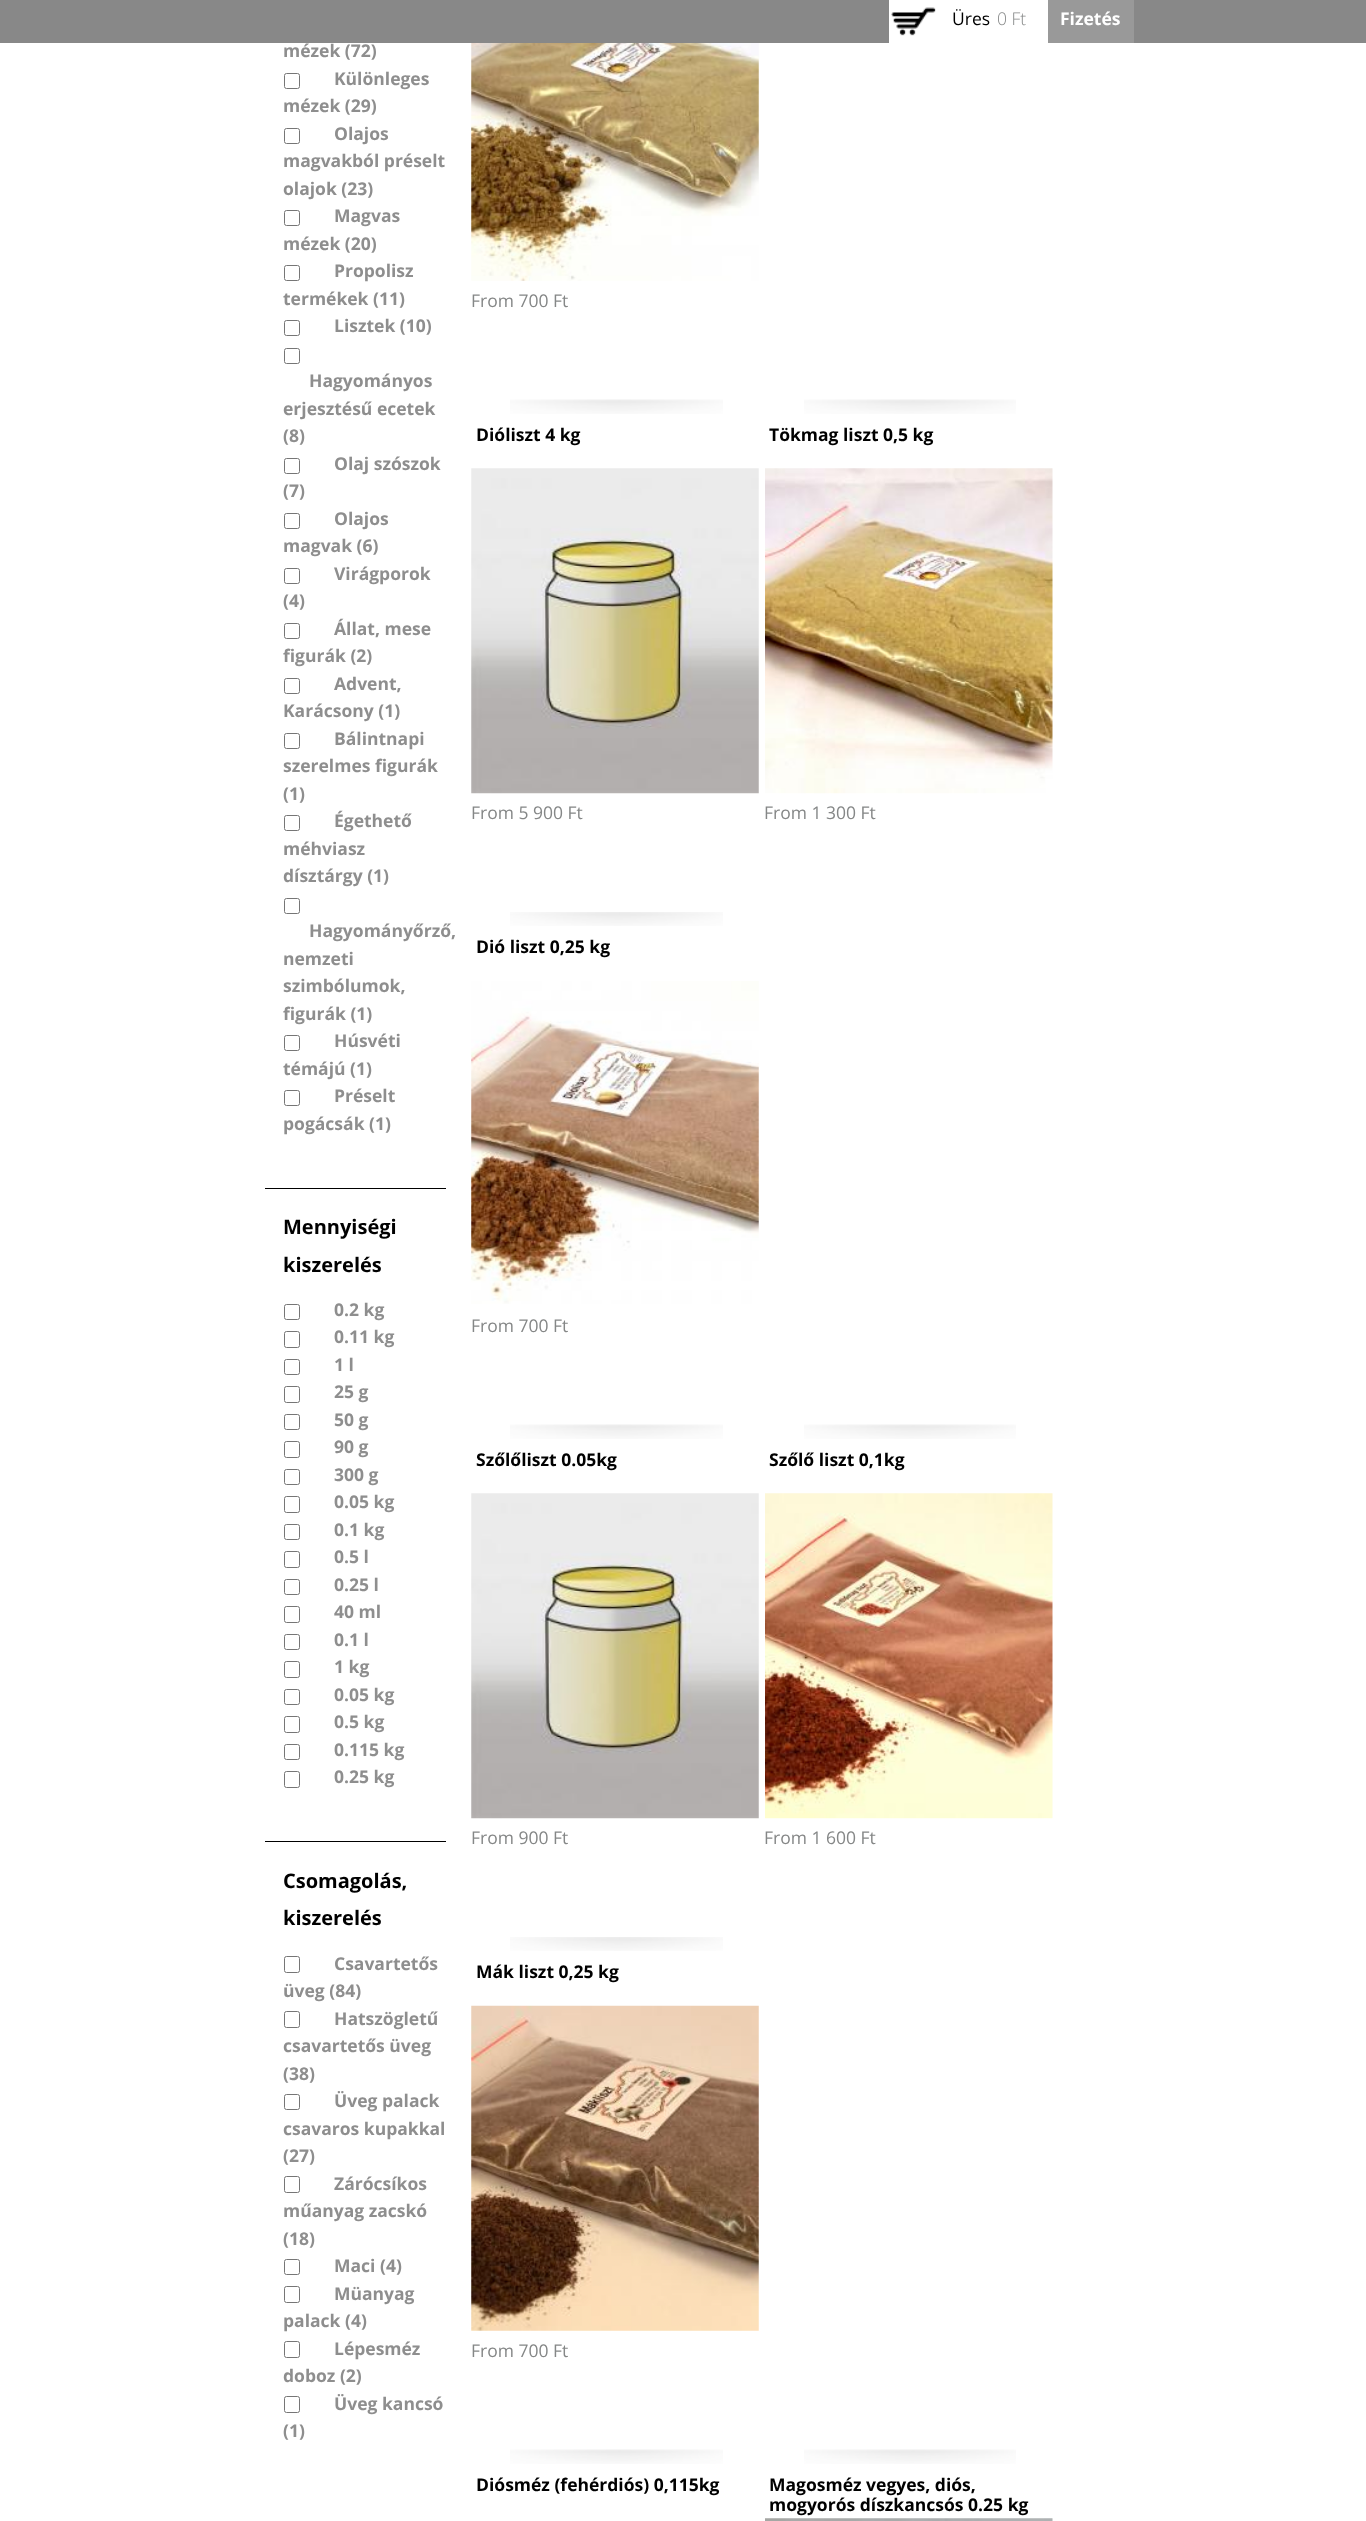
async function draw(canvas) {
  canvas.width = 1366;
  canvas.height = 2521;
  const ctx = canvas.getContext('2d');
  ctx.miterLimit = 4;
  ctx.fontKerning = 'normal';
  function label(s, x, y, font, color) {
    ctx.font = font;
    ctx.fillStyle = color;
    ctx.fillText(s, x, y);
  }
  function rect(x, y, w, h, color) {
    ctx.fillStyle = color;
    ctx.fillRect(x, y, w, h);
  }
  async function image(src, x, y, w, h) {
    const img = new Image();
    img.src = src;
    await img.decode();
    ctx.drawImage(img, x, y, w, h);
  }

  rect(0, 0, 1366, 2521, '#fff');
  rect(0, 0, 1366, 43, '#888');
  rect(889, 0, 159, 43, '#fff');
  await image('assets/img1.png', 891, 7, 45, 29);
  label('Üres', 952, 25, '17.5px Open Sans', '#000');
  label('0 Ft', 997, 25, '300 17.5px Open Sans', '#858787');
  rect(1048, 0, 86, 43, '#999');
  label('Fizetés', 1060, 25, 'bold 17.5px Open Sans', '#fff');
  label('mézek (72)', 283, 57, 'bold 17.5px Open Sans', '#8e8e8e');
  ctx.beginPath();
  ctx.roundRect(284.5, 73.5, 15, 15, 2);
  ctx.strokeStyle = '#767676';
  ctx.stroke();
  label('Különleges', 334, 85, 'bold 17.5px Open Sans', '#8e8e8e');
  label('mézek (29)', 283, 112, 'bold 17.5px Open Sans', '#8e8e8e');
  ctx.beginPath();
  ctx.roundRect(284.5, 128.5, 15, 15, 2);
  ctx.stroke();
  label('Olajos', 334, 140, 'bold 17.5px Open Sans', '#8e8e8e');
  label('magvakból préselt', 283, 167, 'bold 17.5px Open Sans', '#8e8e8e');
  label('olajok (23)', 283, 195, 'bold 17.5px Open Sans', '#8e8e8e');
  ctx.beginPath();
  ctx.roundRect(284.5, 210.5, 15, 15, 2);
  ctx.stroke();
  label('Magvas', 334, 222, 'bold 17.5px Open Sans', '#8e8e8e');
  label('mézek (20)', 283, 250, 'bold 17.5px Open Sans', '#8e8e8e');
  ctx.beginPath();
  ctx.roundRect(284.5, 265.5, 15, 15, 2);
  ctx.stroke();
  label('Propolisz', 334, 277, 'bold 17.5px Open Sans', '#8e8e8e');
  label('termékek (11)', 283, 305, 'bold 17.5px Open Sans', '#8e8e8e');
  ctx.beginPath();
  ctx.roundRect(284.5, 320.5, 15, 15, 2);
  ctx.stroke();
  label('Lisztek (10)', 334, 332, 'bold 17.5px Open Sans', '#8e8e8e');
  ctx.beginPath();
  ctx.roundRect(284.5, 348.5, 15, 15, 2);
  ctx.stroke();
  label('Hagyományos', 309, 387, 'bold 17.5px Open Sans', '#8e8e8e');
  label('erjesztésű ecetek', 283, 415, 'bold 17.5px Open Sans', '#8e8e8e');
  label('(8)', 283, 442, 'bold 17.5px Open Sans', '#8e8e8e');
  ctx.beginPath();
  ctx.roundRect(284.5, 458.5, 15, 15, 2);
  ctx.stroke();
  label('Olaj szószok', 334, 470, 'bold 17.5px Open Sans', '#8e8e8e');
  label('(7)', 283, 497, 'bold 17.5px Open Sans', '#8e8e8e');
  ctx.beginPath();
  ctx.roundRect(284.5, 513.5, 15, 15, 2);
  ctx.stroke();
  label('Olajos', 334, 525, 'bold 17.5px Open Sans', '#8e8e8e');
  label('magvak (6)', 283, 552, 'bold 17.5px Open Sans', '#8e8e8e');
  ctx.beginPath();
  ctx.roundRect(284.5, 568.5, 15, 15, 2);
  ctx.stroke();
  label('Virágporok', 334, 580, 'bold 17.5px Open Sans', '#8e8e8e');
  label('(4)', 283, 607, 'bold 17.5px Open Sans', '#8e8e8e');
  ctx.beginPath();
  ctx.roundRect(284.5, 623.5, 15, 15, 2);
  ctx.stroke();
  label('Állat, mese', 334, 635, 'bold 17.5px Open Sans', '#8e8e8e');
  label('figurák (2)', 283, 662, 'bold 17.5px Open Sans', '#8e8e8e');
  ctx.beginPath();
  ctx.roundRect(284.5, 678.5, 15, 15, 2);
  ctx.stroke();
  label('Advent,', 334, 690, 'bold 17.5px Open Sans', '#8e8e8e');
  label('Karácsony (1)', 283, 717, 'bold 17.5px Open Sans', '#8e8e8e');
  ctx.beginPath();
  ctx.roundRect(284.5, 733.5, 15, 15, 2);
  ctx.stroke();
  label('Bálintnapi', 334, 745, 'bold 17.5px Open Sans', '#8e8e8e');
  label('szerelmes figurák', 283, 772, 'bold 17.5px Open Sans', '#8e8e8e');
  label('(1)', 283, 800, 'bold 17.5px Open Sans', '#8e8e8e');
  ctx.beginPath();
  ctx.roundRect(284.5, 815.5, 15, 15, 2);
  ctx.stroke();
  label('Égethető', 334, 827, 'bold 17.5px Open Sans', '#8e8e8e');
  label('méhviasz', 283, 855, 'bold 17.5px Open Sans', '#8e8e8e');
  label('dísztárgy (1)', 283, 882, 'bold 17.5px Open Sans', '#8e8e8e');
  ctx.beginPath();
  ctx.roundRect(284.5, 898.5, 15, 15, 2);
  ctx.stroke();
  label('Hagyományőrző,', 309, 937, 'bold 17.5px Open Sans', '#8e8e8e');
  label('nemzeti', 283, 965, 'bold 17.5px Open Sans', '#8e8e8e');
  label('szimbólumok,', 283, 992, 'bold 17.5px Open Sans', '#8e8e8e');
  label('figurák (1)', 283, 1020, 'bold 17.5px Open Sans', '#8e8e8e');
  ctx.beginPath();
  ctx.roundRect(284.5, 1035.5, 15, 15, 2);
  ctx.stroke();
  label('Húsvéti', 334, 1047, 'bold 17.5px Open Sans', '#8e8e8e');
  label('témájú (1)', 283, 1075, 'bold 17.5px Open Sans', '#8e8e8e');
  ctx.beginPath();
  ctx.roundRect(284.5, 1090.5, 15, 15, 2);
  ctx.stroke();
  label('Préselt', 334, 1102, 'bold 17.5px Open Sans', '#8e8e8e');
  label('pogácsák (1)', 283, 1130, 'bold 17.5px Open Sans', '#8e8e8e');
  rect(265, 1188, 181, 1, '#000');
  label('Mennyiségi', 283, 1234, 'bold 20px Open Sans', '#000');
  label('kiszerelés', 283, 1272, 'bold 20px Open Sans', '#000');
  ctx.beginPath();
  ctx.roundRect(284.5, 1304.5, 15, 15, 2);
  ctx.stroke();
  label('0.2 kg', 334, 1316, 'bold 17.5px Open Sans', '#8e8e8e');
  ctx.beginPath();
  ctx.roundRect(284.5, 1331.5, 15, 16, 2);
  ctx.stroke();
  label('0.11 kg', 334, 1343, 'bold 17.5px Open Sans', '#8e8e8e');
  ctx.beginPath();
  ctx.roundRect(284.5, 1359.5, 15, 15, 2);
  ctx.stroke();
  label('1 l', 334, 1371, 'bold 17.5px Open Sans', '#8e8e8e');
  ctx.beginPath();
  ctx.roundRect(284.5, 1386.5, 15, 16, 2);
  ctx.stroke();
  label('25 g', 334, 1398, 'bold 17.5px Open Sans', '#8e8e8e');
  ctx.beginPath();
  ctx.roundRect(284.5, 1414.5, 15, 15, 2);
  ctx.stroke();
  label('50 g', 334, 1426, 'bold 17.5px Open Sans', '#8e8e8e');
  ctx.beginPath();
  ctx.roundRect(284.5, 1441.5, 15, 16, 2);
  ctx.stroke();
  label('90 g', 334, 1453, 'bold 17.5px Open Sans', '#8e8e8e');
  ctx.beginPath();
  ctx.roundRect(284.5, 1469.5, 15, 15, 2);
  ctx.stroke();
  label('300 g', 334, 1481, 'bold 17.5px Open Sans', '#8e8e8e');
  ctx.beginPath();
  ctx.roundRect(284.5, 1496.5, 15, 16, 2);
  ctx.stroke();
  label('0.05 kg', 334, 1508, 'bold 17.5px Open Sans', '#8e8e8e');
  ctx.beginPath();
  ctx.roundRect(284.5, 1524.5, 15, 15, 2);
  ctx.stroke();
  label('0.1 kg', 334, 1536, 'bold 17.5px Open Sans', '#8e8e8e');
  ctx.beginPath();
  ctx.roundRect(284.5, 1551.5, 15, 16, 2);
  ctx.stroke();
  label('0.5 l', 334, 1563, 'bold 17.5px Open Sans', '#8e8e8e');
  ctx.beginPath();
  ctx.roundRect(284.5, 1579.5, 15, 15, 2);
  ctx.stroke();
  label('0.25 l', 334, 1591, 'bold 17.5px Open Sans', '#8e8e8e');
  ctx.beginPath();
  ctx.roundRect(284.5, 1606.5, 15, 16, 2);
  ctx.stroke();
  label('40 ml', 334, 1618, 'bold 17.5px Open Sans', '#8e8e8e');
  ctx.beginPath();
  ctx.roundRect(284.5, 1634.5, 15, 15, 2);
  ctx.stroke();
  label('0.1 l', 334, 1646, 'bold 17.5px Open Sans', '#8e8e8e');
  ctx.beginPath();
  ctx.roundRect(284.5, 1661.5, 15, 16, 2);
  ctx.stroke();
  label('1 kg', 334, 1673, 'bold 17.5px Open Sans', '#8e8e8e');
  ctx.beginPath();
  ctx.roundRect(284.5, 1689.5, 15, 15, 2);
  ctx.stroke();
  label('0.05 kg', 334, 1701, 'bold 17.5px Open Sans', '#8e8e8e');
  ctx.beginPath();
  ctx.roundRect(284.5, 1716.5, 15, 16, 2);
  ctx.stroke();
  label('0.5 kg', 334, 1728, 'bold 17.5px Open Sans', '#8e8e8e');
  ctx.beginPath();
  ctx.roundRect(284.5, 1744.5, 15, 15, 2);
  ctx.stroke();
  label('0.115 kg', 334, 1756, 'bold 17.5px Open Sans', '#8e8e8e');
  ctx.beginPath();
  ctx.roundRect(284.5, 1771.5, 15, 16, 2);
  ctx.stroke();
  label('0.25 kg', 334, 1783, 'bold 17.5px Open Sans', '#8e8e8e');
  rect(265, 1841, 181, 1, '#000');
  label('Csomagolás,', 283, 1888, 'bold 20px Open Sans', '#000');
  label('kiszerelés', 283, 1925, 'bold 20px Open Sans', '#000');
  ctx.beginPath();
  ctx.roundRect(284.5, 1956.5, 15, 16, 2);
  ctx.stroke();
  label('Csavartetős', 334, 1970, 'bold 17.5px Open Sans', '#8e8e8e');
  label('üveg (84)', 283, 1997, 'bold 17.5px Open Sans', '#8e8e8e');
  ctx.beginPath();
  ctx.roundRect(284.5, 2011.5, 15, 16, 2);
  ctx.stroke();
  label('Hatszögletű', 334, 2025, 'bold 17.5px Open Sans', '#8e8e8e');
  label('csavartetős üveg', 283, 2052, 'bold 17.5px Open Sans', '#8e8e8e');
  label('(38)', 283, 2080, 'bold 17.5px Open Sans', '#8e8e8e');
  ctx.beginPath();
  ctx.roundRect(284.5, 2094.5, 15, 15, 2);
  ctx.stroke();
  label('Üveg palack', 334, 2107, 'bold 17.5px Open Sans', '#8e8e8e');
  label('csavaros kupakkal', 283, 2135, 'bold 17.5px Open Sans', '#8e8e8e');
  label('(27)', 283, 2162, 'bold 17.5px Open Sans', '#8e8e8e');
  ctx.beginPath();
  ctx.roundRect(284.5, 2176.5, 15, 16, 2);
  ctx.stroke();
  label('Zárócsíkos', 334, 2190, 'bold 17.5px Open Sans', '#8e8e8e');
  label('műanyag zacskó', 283, 2217, 'bold 17.5px Open Sans', '#8e8e8e');
  label('(18)', 283, 2245, 'bold 17.5px Open Sans', '#8e8e8e');
  ctx.beginPath();
  ctx.roundRect(284.5, 2259.5, 15, 15, 2);
  ctx.stroke();
  label('Maci (4)', 334, 2272, 'bold 17.5px Open Sans', '#8e8e8e');
  ctx.beginPath();
  ctx.roundRect(284.5, 2286.5, 15, 16, 2);
  ctx.stroke();
  label('Müanyag', 334, 2300, 'bold 17.5px Open Sans', '#8e8e8e');
  label('palack (4)', 283, 2327, 'bold 17.5px Open Sans', '#8e8e8e');
  ctx.beginPath();
  ctx.roundRect(284.5, 2341.5, 15, 16, 2);
  ctx.stroke();
  label('Lépesméz', 334, 2355, 'bold 17.5px Open Sans', '#8e8e8e');
  label('doboz (2)', 283, 2382, 'bold 17.5px Open Sans', '#8e8e8e');
  ctx.beginPath();
  ctx.roundRect(284.5, 2396.5, 15, 16, 2);
  ctx.stroke();
  label('Üveg kancsó', 334, 2410, 'bold 17.5px Open Sans', '#8e8e8e');
  label('(1)', 283, 2437, 'bold 17.5px Open Sans', '#8e8e8e');
  await image('assets/img2.png', 471, 43, 288, 238);
  label('From 700 Ft', 471, 307, '17.5px Open Sans', '#858787');
  await image('assets/img3.png', 510, 399, 213, 15);
  label('Dióliszt 4 kg', 476, 441, 'bold 17.5px Open Sans', '#000');
  await image('assets/img4.png', 471, 468, 288, 326);
  label('From 5 900 Ft', 471, 819, '17.5px Open Sans', '#858787');
  await image('assets/img5.png', 804, 399, 212, 15);
  label('Tökmag liszt 0,5 kg', 769, 441, 'bold 17.5px Open Sans', '#000');
  await image('assets/img6.png', 765, 468, 288, 326);
  label('From 1 300 Ft', 764, 819, '17.5px Open Sans', '#858787');
  await image('assets/img7.png', 510, 912, 213, 14);
  label('Dió liszt 0,25 kg', 476, 953, 'bold 17.5px Open Sans', '#000');
  await image('assets/img8.png', 471, 981, 288, 323);
  label('From 700 Ft', 471, 1332, '17.5px Open Sans', '#858787');
  await image('assets/img3.png', 510, 1424, 213, 15);
  label('Szőlőliszt 0.05kg', 476, 1466, 'bold 17.5px Open Sans', '#000');
  await image('assets/img4.png', 471, 1493, 288, 326);
  label('From 900 Ft', 471, 1844, '17.5px Open Sans', '#858787');
  await image('assets/img5.png', 804, 1424, 212, 15);
  label('Szőlő liszt 0,1kg', 769, 1466, 'bold 17.5px Open Sans', '#000');
  await image('assets/img9.png', 765, 1493, 288, 326);
  label('From 1 600 Ft', 764, 1844, '17.5px Open Sans', '#858787');
  await image('assets/img7.png', 510, 1937, 213, 14);
  label('Mák liszt 0,25 kg', 476, 1978, 'bold 17.5px Open Sans', '#000');
  await image('assets/img10.png', 471, 2005, 288, 326);
  label('From 700 Ft', 471, 2357, '17.5px Open Sans', '#858787');
  await image('assets/img3.png', 510, 2449, 213, 15);
  label('Diósméz (fehérdiós) 0,115kg', 476, 2491, 'bold 17.5px Open Sans', '#000');
  await image('assets/img5.png', 804, 2449, 212, 15);
  label('Magosméz vegyes, diós,', 769, 2491, 'bold 17.5px Open Sans', '#000');
  label('mogyorós díszkancsós 0.25 kg', 769, 2511, 'bold 17.5px Open Sans', '#000');
  await image('assets/img11.png', 765, 2518, 288, 3);
}

draw(document.querySelector('canvas'));
